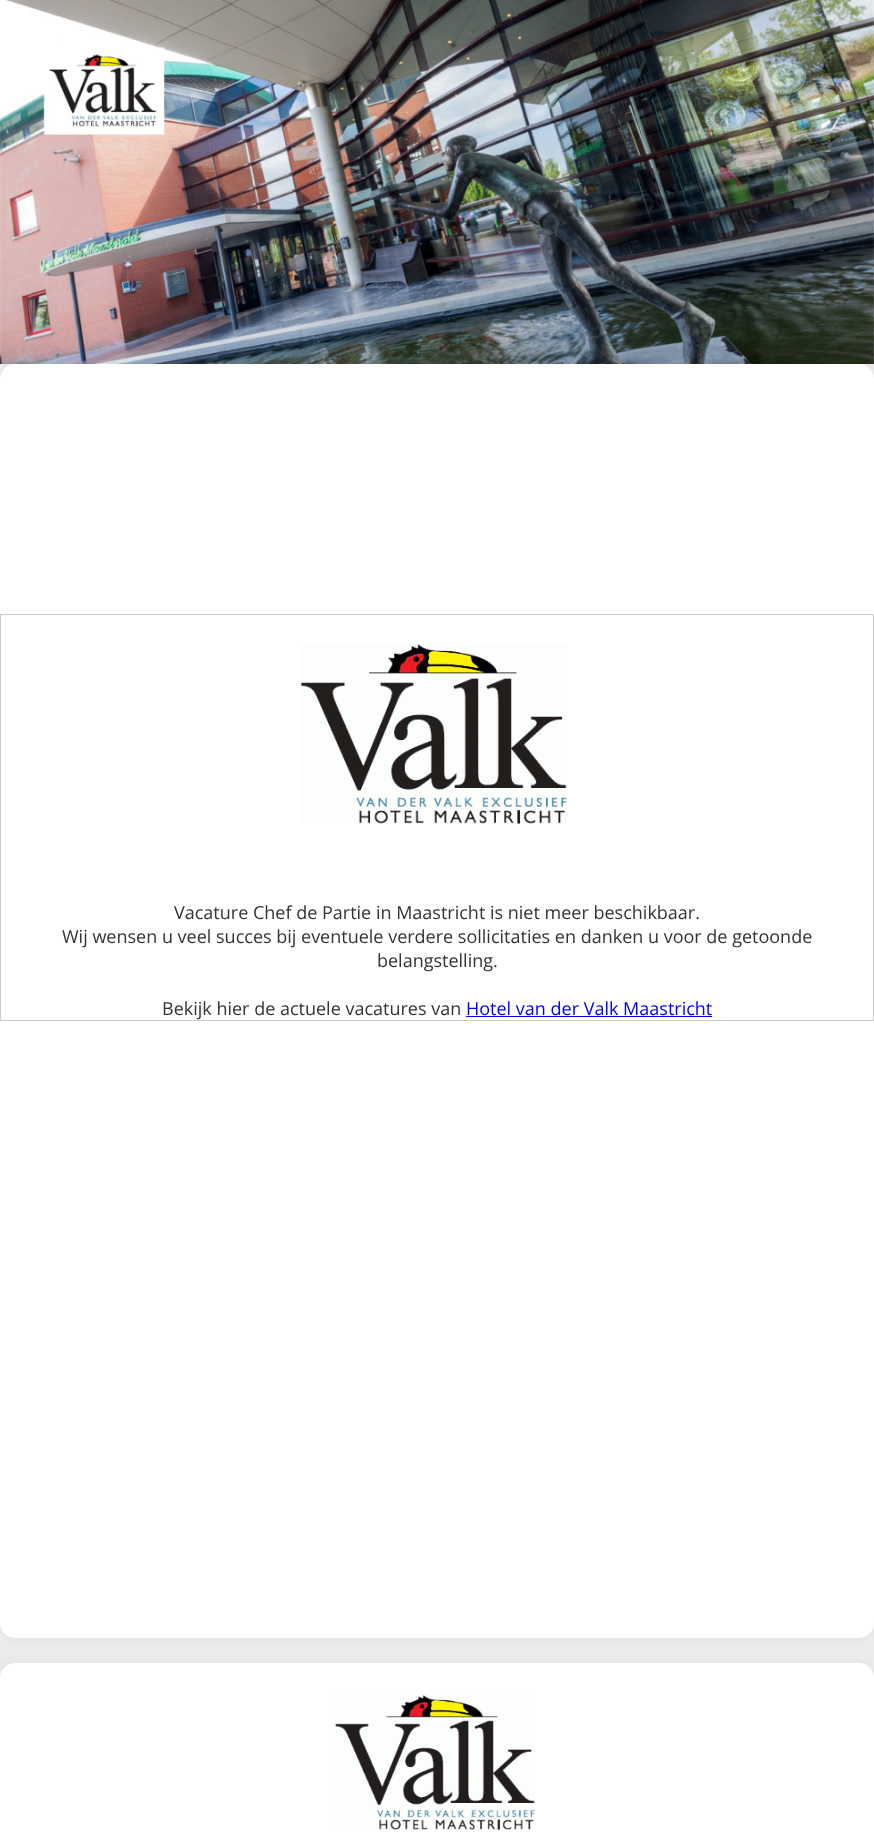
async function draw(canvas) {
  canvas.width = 874;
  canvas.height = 1841;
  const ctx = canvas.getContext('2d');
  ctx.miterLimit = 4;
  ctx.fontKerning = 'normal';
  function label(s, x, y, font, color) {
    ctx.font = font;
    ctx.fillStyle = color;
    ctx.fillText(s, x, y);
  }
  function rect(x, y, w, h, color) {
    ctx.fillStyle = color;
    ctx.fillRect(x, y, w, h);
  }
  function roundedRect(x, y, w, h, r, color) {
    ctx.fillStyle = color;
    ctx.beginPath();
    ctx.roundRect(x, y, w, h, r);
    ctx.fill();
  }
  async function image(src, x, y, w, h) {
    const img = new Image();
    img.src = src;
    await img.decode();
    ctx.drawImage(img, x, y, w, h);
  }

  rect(0, 0, 874, 1841, '#eeebeb');
  await image('assets/img1.png', 0, 0, 874, 364);
  ctx.fillStyle = '#0000000d';
  ctx.filter = 'blur(5px)';
  ctx.beginPath();
  ctx.roundRect(0, 364, 874, 1274, 15);
  ctx.fill();
  ctx.filter = 'none';
  roundedRect(0, 364, 874, 1274, 15, '#fff');
  ctx.strokeStyle = '#ccc';
  ctx.strokeRect(0.5, 614.5, 873, 406);
  await image('assets/img2.png', 301, 644, 266, 180);
  label('Vacature Chef de Partie in Maastricht is niet meer beschikbaar.', 174, 919, '18px Open Sans', '#333');
  label('Wij wensen u veel succes bij eventuele verdere sollicitaties en danken u voor de getoonde', 62, 943, '18px Open Sans', '#333');
  label('belangstelling.', 377, 967, '18px Open Sans', '#333');
  label('Bekijk hier de actuele vacatures van', 162, 1015, '18px Open Sans', '#333');
  label('Hotel van der Valk Maastricht', 466, 1015, '18px Open Sans', '#00e');
  rect(466, 1016, 246, 1, '#00e');
  ctx.fillStyle = '#0000000d';
  ctx.filter = 'blur(5px)';
  ctx.beginPath();
  ctx.roundRect(0, 1663, 874, 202, 15);
  ctx.fill();
  ctx.filter = 'none';
  roundedRect(0, 1663, 874, 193, 15, '#fff');
  await image('assets/img3.png', 335, 1695, 200, 135);
}

draw(document.querySelector('canvas'));
